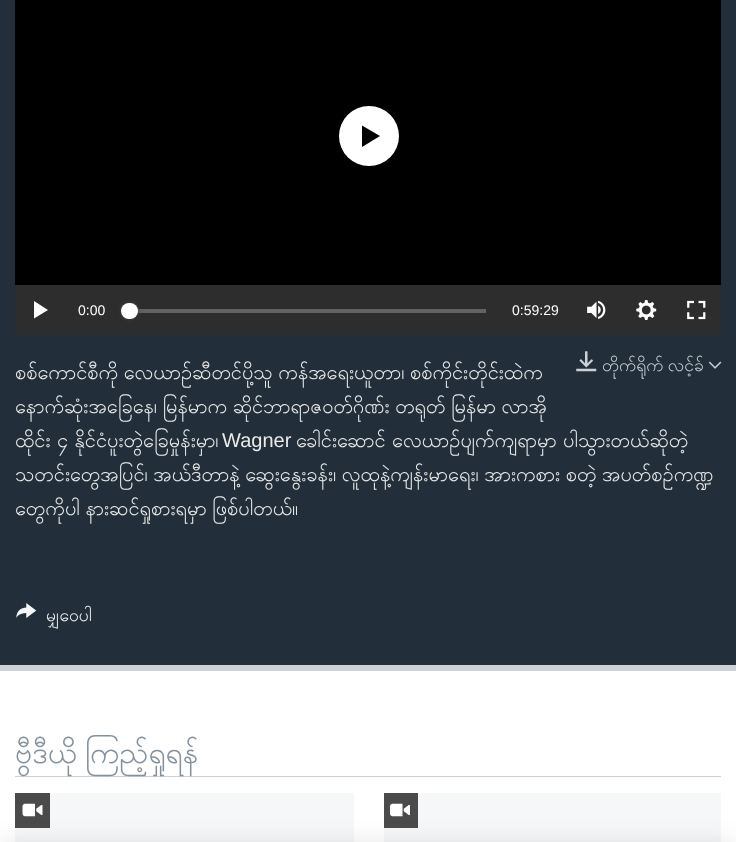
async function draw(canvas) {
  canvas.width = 736;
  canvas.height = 842;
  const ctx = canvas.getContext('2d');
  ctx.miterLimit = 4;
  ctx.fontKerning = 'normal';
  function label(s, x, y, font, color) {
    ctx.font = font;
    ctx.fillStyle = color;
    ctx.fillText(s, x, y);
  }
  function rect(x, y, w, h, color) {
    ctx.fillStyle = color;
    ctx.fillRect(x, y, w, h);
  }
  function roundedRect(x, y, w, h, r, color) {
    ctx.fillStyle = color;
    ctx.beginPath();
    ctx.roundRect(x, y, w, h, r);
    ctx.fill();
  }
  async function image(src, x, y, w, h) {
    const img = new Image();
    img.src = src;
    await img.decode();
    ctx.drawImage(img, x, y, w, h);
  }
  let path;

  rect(0, 0, 736, 842, '#fff');
  rect(0, 0, 736, 665, '#222f3a');
  rect(0, 665, 736, 6, '#cbd1d6');
  rect(15, 0, 706, 285, '#000');
  ctx.fillStyle = '#fff';
  ctx.beginPath();
  ctx.arc(369, 136, 30, 0, 2 * Math.PI);
  ctx.fill();
  ctx.fillStyle = '#000';
  path = new Path2D('M362 147L380 136L362 125.5Z');
  ctx.fill(path);
  rect(15, 285, 706, 50, '#2d2d2d');
  ctx.fillStyle = '#fff';
  path = new Path2D('M34 318.5L48 310L34 301Z');
  ctx.fill(path);
  label('0:00', 78, 315, '14px Liberation Sans', '#fff');
  rect(129, 309, 357, 4, '#626262');
  ctx.fillStyle = '#414144';
  ctx.filter = 'blur(2px)';
  ctx.beginPath();
  ctx.roundRect(121, 303, 17, 16, 8);
  ctx.fill();
  ctx.filter = 'none';
  roundedRect(121, 303, 17, 16, 8, '#fff');
  label('0:59:29', 512, 315, '14px Liberation Sans', '#fff');
  await image('assets/img1.png', 587, 300, 19, 19);
  await image('assets/img2.png', 636, 300, 21, 20);
  await image('assets/img3.png', 687, 300, 19, 20);
  await image('assets/img4.png', 576, 351, 21, 21);
  ctx.wordSpacing = '-2px';
  label('တိုက်ရိုက် လင့်ခ်', 602, 371, '17.5px Padauk', '#cbd1d6');
  await image('assets/img5.png', 708, 361, 14, 8);
  ctx.wordSpacing = '-1.75px';
  label('စစ်ကောင်စီကို လေယာဉ်ဆီတင်ပို့သူ ကန်အရေးယူတာ၊ စစ်ကိုင်းတိုင်းထဲက', 15, 379, '20px Padauk', '#ebebeb');
  label('နောက်ဆုံးအခြေနေ၊ မြန်မာက ဆိုင်ဘာရာဇဝတ်ဂိုဏ်း တရုတ် မြန်မာ လာအို', 15, 413, '20px Padauk', '#ebebeb');
  ctx.wordSpacing = '-1px';
  label('ထိုင်း ၄ နိုင်ငံပူးတွဲခြေမှုန်းမှာ၊', 15, 447, '20px Padauk', '#ebebeb');
  ctx.wordSpacing = '0px';
  label('Wagner', 222, 447, '20px Liberation Sans', '#ebebeb');
  ctx.wordSpacing = '-1px';
  label('ခေါင်းဆောင် လေယာဉ်ပျက်ကျရာမှာ ပါသွားတယ်ဆိုတဲ့', 296, 447, '20px Padauk', '#ebebeb');
  ctx.wordSpacing = '-1.75px';
  label('သတင်းတွေအပြင်၊ အယ်ဒီတာနဲ့ ဆွေးနွေးခန်း၊ လူထုနဲ့ကျန်းမာရေး၊ အားကစား စတဲ့ အပတ်စဉ်ကဏ္ဍ', 15, 481, '20px Padauk', '#ebebeb');
  label('တွေကိုပါ နားဆင်ရှုစားရမှာ ဖြစ်ပါတယ်။', 15, 515, '20px Padauk', '#ebebeb');
  await image('assets/img6.png', 16, 603, 21, 15);
  ctx.wordSpacing = '0px';
  label('မျှဝေပါ', 46, 621, '17.5px Padauk', '#f6f7f8');
  rect(15, 776, 706, 1, '#cbd1d6');
  ctx.wordSpacing = '-3px';
  label('ဗွီဒီယို ကြည့်ရှုရန်', 15, 763, '30px Padauk', '#84919d');
  rect(15, 793, 339, 49, '#f6f7f8');
  rect(15, 793, 35, 35, '#4a4a4a');
  await image('assets/img7.png', 22, 803, 21, 14);
  rect(384, 793, 337, 49, '#f6f7f8');
  rect(384, 793, 34, 35, '#4a4a4a');
  await image('assets/img8.png', 390, 803, 20, 14);
  ctx.fillStyle = '#0000001a';
  ctx.filter = 'blur(12.5px)';
  ctx.beginPath();
  ctx.rect(0, 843, 736, 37);
  ctx.fill();
  ctx.filter = 'none';
}

draw(document.querySelector('canvas'));
